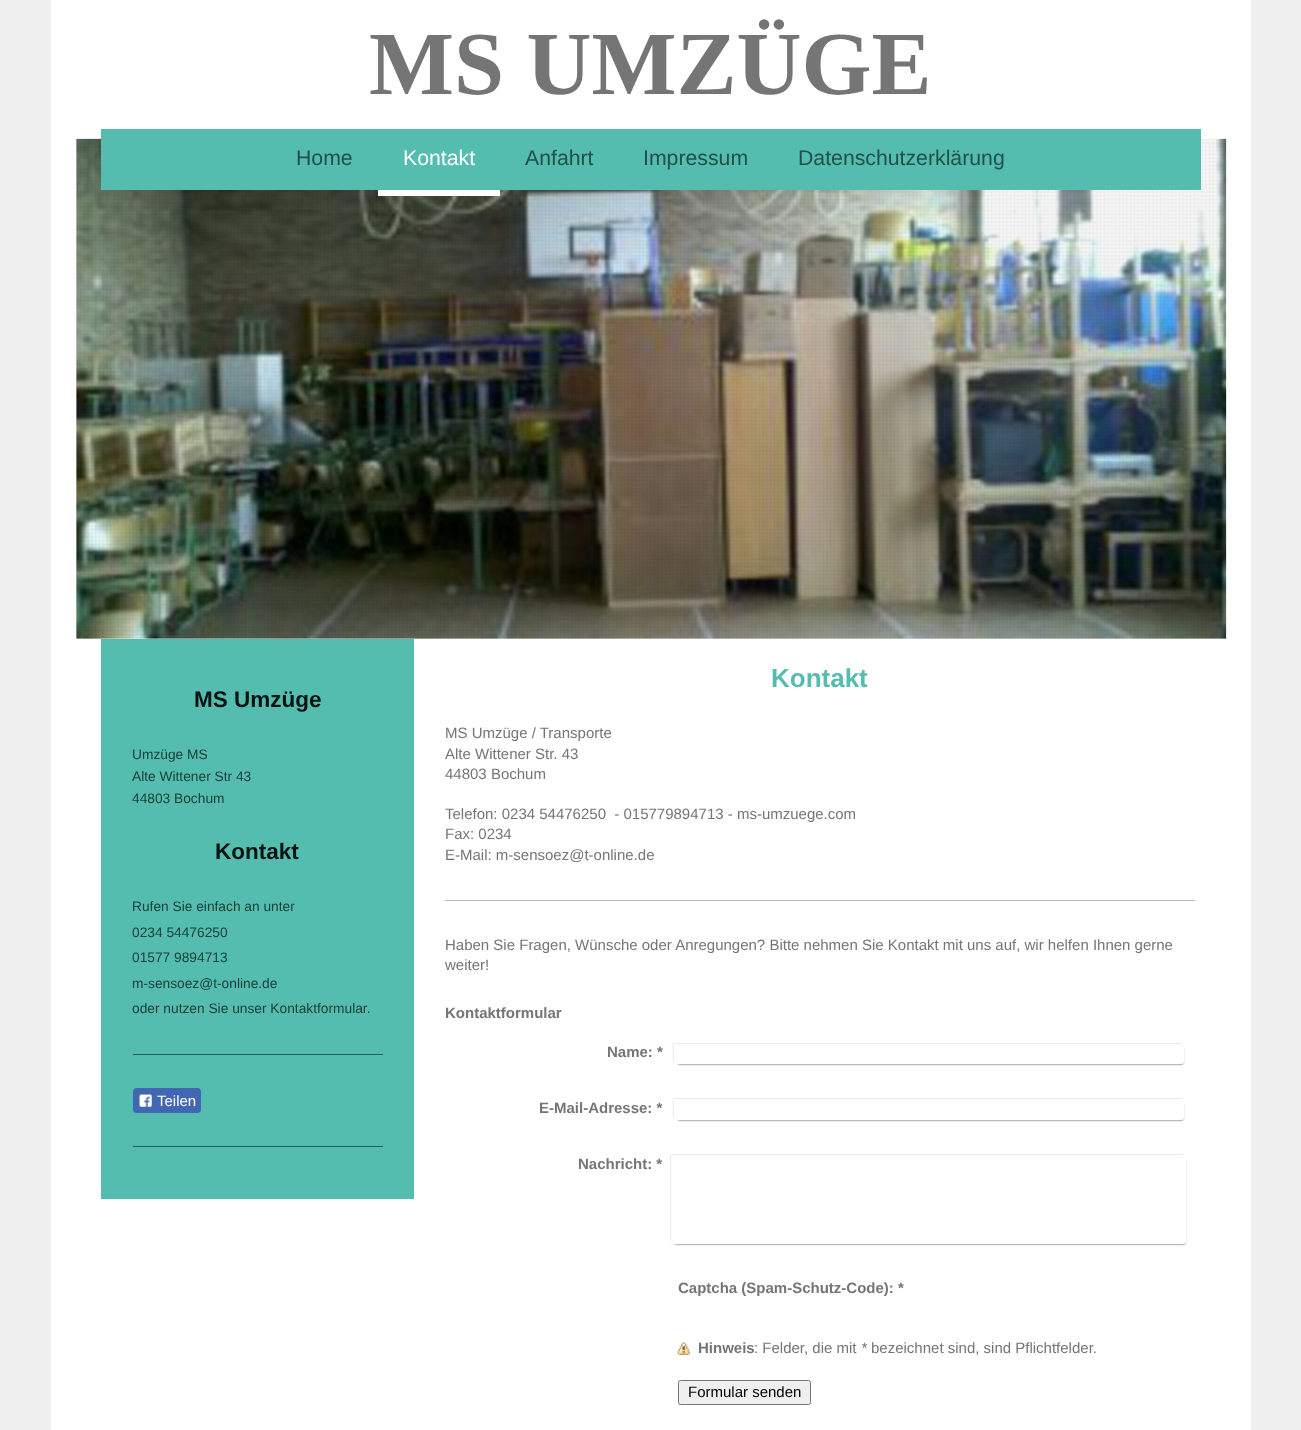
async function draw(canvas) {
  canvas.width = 1301;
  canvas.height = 1430;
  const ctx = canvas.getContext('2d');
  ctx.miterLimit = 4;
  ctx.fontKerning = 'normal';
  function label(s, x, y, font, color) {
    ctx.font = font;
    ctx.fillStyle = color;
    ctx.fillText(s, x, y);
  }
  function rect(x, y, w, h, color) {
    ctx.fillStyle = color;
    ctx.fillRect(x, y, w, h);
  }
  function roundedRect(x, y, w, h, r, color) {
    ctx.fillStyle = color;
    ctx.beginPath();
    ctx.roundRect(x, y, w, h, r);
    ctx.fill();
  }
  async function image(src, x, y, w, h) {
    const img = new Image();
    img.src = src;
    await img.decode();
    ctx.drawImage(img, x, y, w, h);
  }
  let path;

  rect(0, 0, 1301, 1430, '#efefef');
  rect(51, 0, 1200, 1430, '#fff');
  label('MS UMZÜGE', 369, 94, 'bold 90px Liberation Serif', '#757575');
  await image('assets/img1.png', 76, 138, 1151, 501);
  rect(76, 139, 1150, 500, '#eee');
  await image('assets/img2.png', 76, 138, 1151, 501);
  await image('assets/img3.png', 76, 139, 1150, 500);
  rect(101, 129, 1100, 61, '#54bdaf');
  label('Home', 296, 165, '21.25px Liberation Sans', '#20504a');
  rect(378, 190, 122, 6, '#fff');
  label('Kontakt', 403, 165, '21.25px Liberation Sans', '#fff');
  label('Anfahrt', 525, 165, '21.25px Liberation Sans', '#20504a');
  label('Impressum', 643, 165, '21.25px Liberation Sans', '#20504a');
  label('Datenschutzerklärung', 798, 165, '21.25px Liberation Sans', '#20504a');
  rect(101, 639, 313, 560, '#54bdaf');
  label('MS Umzüge', 194, 707, 'bold 22.5px Liberation Sans', '#081312');
  label('Umzüge MS', 132, 759, '13.75px Liberation Sans', '#1a403b');
  label('Alte Wittener Str 43', 132, 781, '13.75px Liberation Sans', '#1a403b');
  label('44803 Bochum', 132, 803, '13.75px Liberation Sans', '#1a403b');
  label('Kontakt', 215, 859, 'bold 22.5px Liberation Sans', '#081312');
  label('Rufen Sie einfach an unter', 132, 911, '13.75px Liberation Sans', '#1a403b');
  label('0234 54476250', 132, 937, '13.75px Liberation Sans', '#1a403b');
  label('01577 9894713', 132, 962, '13.75px Liberation Sans', '#1a403b');
  label('m-sensoez@t-online.de', 132, 988, '13.75px Liberation Sans', '#1a403b');
  label('oder nutzen Sie unser Kontaktformular.', 132, 1013, '13.75px Liberation Sans', '#1a403b');
  rect(133, 1054, 250, 1, '#266159');
  roundedRect(133, 1088, 68, 25, 4, '#4267b2');
  await image('assets/img4.png', 139, 1094, 13, 13);
  label('Teilen', 157, 1106, '15px Liberation Sans', '#fff');
  rect(133, 1146, 250, 1, '#266159');
  label('Kontakt', 771, 687, 'bold 26px Liberation Sans', '#54bdaf');
  label('MS Umzüge / Transporte', 445, 738, '15px Liberation Sans', '#757575');
  label('Alte Wittener Str. 43', 445, 759, '15px Liberation Sans', '#757575');
  label('44803 Bochum', 445, 779, '15px Liberation Sans', '#757575');
  label('Telefon: 0234 54476250  - 015779894713 - ms-umzuege.com', 445, 819, '15px Liberation Sans', '#757575');
  label('Fax: 0234', 445, 839, '15px Liberation Sans', '#757575');
  label('E-Mail: m-sensoez@t-online.de', 445, 860, '15px Liberation Sans', '#757575');
  rect(445, 900, 750, 1, '#bababa');
  label('Haben Sie Fragen, Wünsche oder Anregungen? Bitte nehmen Sie Kontakt mit uns auf, wir helfen Ihnen gerne', 445, 950, '15px Liberation Sans', '#757575');
  label('weiter!', 445, 970, '15px Liberation Sans', '#757575');
  label('Kontaktformular', 445, 1018, 'bold 15px Liberation Sans', '#757575');
  ctx.fillStyle = '#ebebeb';
  path = new Path2D('M676 1043C671 1043 673 1051 673 1053C673 1055 672 1061 674 1063V1051C674 1049 673 1044 676 1044H1181H1183L1180 1043Z');
  ctx.fill(path);
  ctx.fillStyle = '#000000cc';
  ctx.filter = 'blur(1px)';
  ctx.beginPath();
  ctx.rect(678, 1049, 505, 15);
  ctx.fill();
  ctx.filter = 'none';
  roundedRect(674, 1044, 510, 20, 2.5, '#fff');
  label('Name: *', 607, 1057, 'bold 15px Liberation Sans', '#757575');
  ctx.fillStyle = '#ebebeb';
  path = new Path2D('M676 1098C671 1098 673 1106 673 1108C673 1111 672 1117 674 1118V1109C674 1107 672 1099 676 1099H1181H1183L1180 1098Z');
  ctx.fill(path);
  ctx.fillStyle = '#000000cc';
  ctx.filter = 'blur(1px)';
  ctx.beginPath();
  ctx.rect(678, 1104, 505, 16);
  ctx.fill();
  ctx.filter = 'none';
  roundedRect(674, 1099, 510, 21, 2.5, '#fff');
  label('E-Mail-Adresse: *', 539, 1113, 'bold 15px Liberation Sans', '#757575');
  ctx.fillStyle = '#ebebeb';
  path = new Path2D('M672 1154H671L670 1156V1240L671 1242L672 1243L671 1241V1158C671 1156 672 1155 674 1155H1185L1182 1154Z');
  ctx.fill(path);
  ctx.fillStyle = '#000000cc';
  ctx.filter = 'blur(1px)';
  ctx.beginPath();
  ctx.rect(675, 1160, 510, 84);
  ctx.fill();
  ctx.filter = 'none';
  roundedRect(671, 1155, 515, 89, 2.5, '#fff');
  label('Nachricht: *', 578, 1169, 'bold 15px Liberation Sans', '#757575');
  label('Captcha (Spam-Schutz-Code): *', 678, 1293, 'bold 15px Liberation Sans', '#757575');
  await image('assets/img5.png', 677, 1342, 13, 13);
  label('Hinweis', 698, 1353, 'bold 15px Liberation Sans', '#757575');
  label(': Felder, die mit', 754, 1353, '15px Liberation Sans', '#757575');
  label('*', 861, 1353, 'italic 15px Liberation Sans', '#757575');
  label('bezeichnet sind, sind Pflichtfelder.', 871, 1353, '15px Liberation Sans', '#757575');
  ctx.fillStyle = '#efefef';
  ctx.beginPath();
  ctx.roundRect(678.5, 1380.5, 132, 24, 2);
  ctx.fill();
  ctx.strokeStyle = '#767676';
  ctx.stroke();
  label('Formular senden', 688, 1397, '15px Liberation Sans', '#000');
}

draw(document.querySelector('canvas'));
